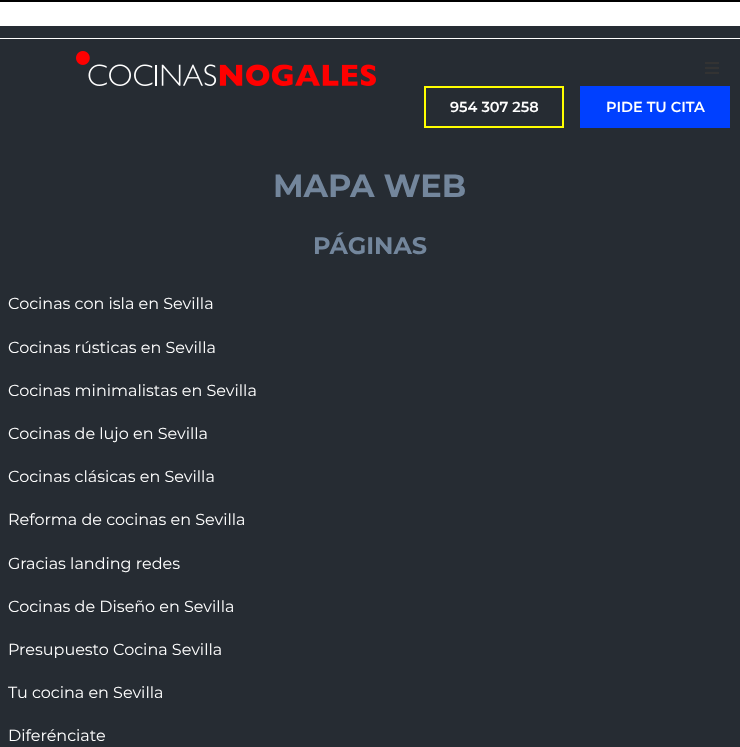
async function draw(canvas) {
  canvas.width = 740;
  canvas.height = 747;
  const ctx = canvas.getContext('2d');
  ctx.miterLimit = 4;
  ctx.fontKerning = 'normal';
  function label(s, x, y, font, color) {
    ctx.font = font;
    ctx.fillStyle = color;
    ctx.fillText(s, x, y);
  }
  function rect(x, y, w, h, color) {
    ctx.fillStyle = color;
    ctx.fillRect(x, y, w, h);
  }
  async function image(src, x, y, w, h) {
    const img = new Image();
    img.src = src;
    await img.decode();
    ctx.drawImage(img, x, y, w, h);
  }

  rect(0, 0, 740, 747, '#fff');
  rect(0, 0, 740, 2, '#000');
  rect(0, 26, 740, 721, '#262c33');
  rect(0, 38, 740, 1, '#fff');
  await image('assets/img1.png', 76, 51, 300, 35);
  await image('assets/img2.png', 705, 62, 14, 12);
  ctx.strokeStyle = '#ff0';
  ctx.lineWidth = 2;
  ctx.strokeRect(425, 87, 138, 40);
  label('954 307 258', 450, 112, '100 14.5px "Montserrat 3"', '#fff');
  rect(580, 86, 150, 42, '#0040ff');
  label('PIDE TU CITA', 606, 112, '100 14.5px "Montserrat 3"', '#fff');
  label('MAPA WEB', 273, 197, '100 32px Montserrat', '#73869c');
  label('PÁGINAS', 313, 254, '100 24px Montserrat', '#73869c');
  label('Cocinas con isla en Sevilla', 8, 309, '100 16px "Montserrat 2"', '#fff');
  label('Cocinas rústicas en Sevilla', 8, 353, '100 16px "Montserrat 2"', '#fff');
  label('Cocinas minimalistas en Sevilla', 8, 396, '100 16px "Montserrat 2"', '#fff');
  label('Cocinas de lujo en Sevilla', 8, 439, '100 16px "Montserrat 2"', '#fff');
  label('Cocinas clásicas en Sevilla', 8, 482, '100 16px "Montserrat 2"', '#fff');
  label('Reforma de cocinas en Sevilla', 8, 525, '100 16px "Montserrat 2"', '#fff');
  label('Gracias landing redes', 8, 569, '100 16px "Montserrat 2"', '#fff');
  label('Cocinas de Diseño en Sevilla', 8, 612, '100 16px "Montserrat 2"', '#fff');
  label('Presupuesto Cocina Sevilla', 8, 655, '100 16px "Montserrat 2"', '#fff');
  label('Tu cocina en Sevilla', 8, 698, '100 16px "Montserrat 2"', '#fff');
  label('Diferénciate', 8, 741, '100 16px "Montserrat 2"', '#fff');
}

draw(document.querySelector('canvas'));
